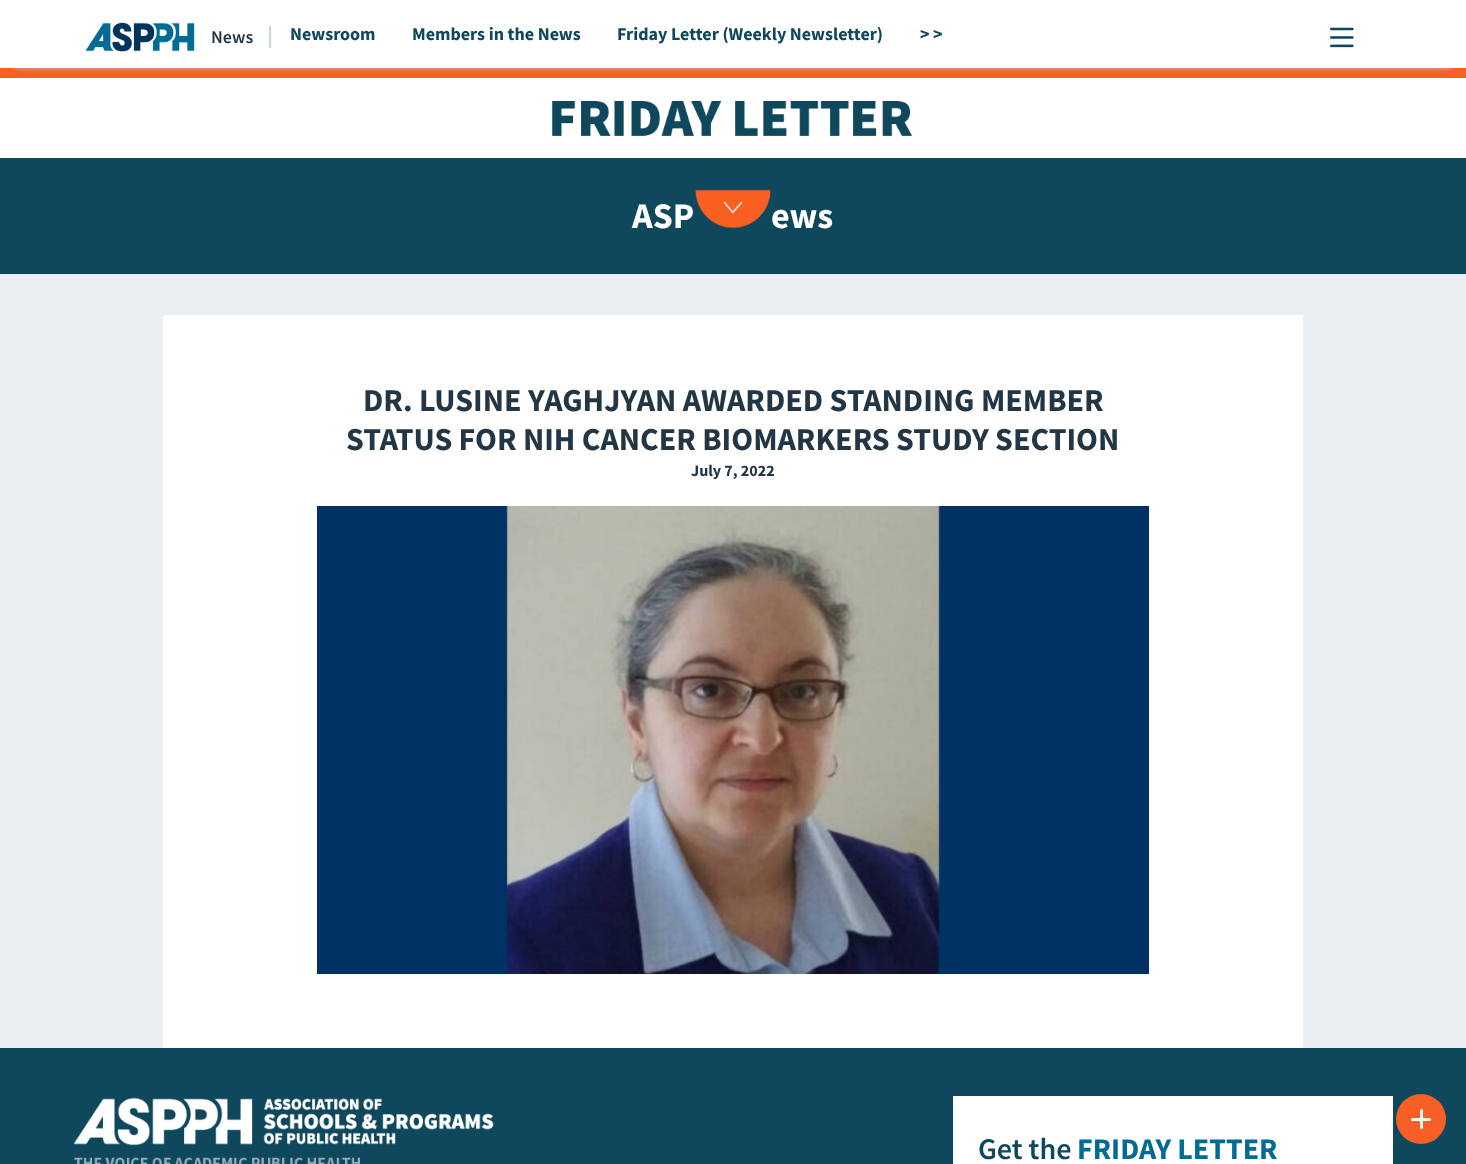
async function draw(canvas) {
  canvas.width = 1466;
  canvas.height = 1164;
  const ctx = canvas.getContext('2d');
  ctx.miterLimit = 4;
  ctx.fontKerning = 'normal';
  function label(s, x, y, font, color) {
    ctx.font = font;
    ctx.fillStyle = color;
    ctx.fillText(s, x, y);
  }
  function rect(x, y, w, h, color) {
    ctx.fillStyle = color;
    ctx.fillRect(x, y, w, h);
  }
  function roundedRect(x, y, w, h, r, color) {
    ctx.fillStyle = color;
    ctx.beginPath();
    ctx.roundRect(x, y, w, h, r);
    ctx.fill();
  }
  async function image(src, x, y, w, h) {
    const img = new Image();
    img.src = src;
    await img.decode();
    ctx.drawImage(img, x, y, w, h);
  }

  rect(0, 0, 1466, 1164, '#fff');
  rect(0, 68, 1466, 10, '#f85f26');
  ctx.fillStyle = '#bcc6ce';
  ctx.filter = 'blur(2.5px)';
  ctx.beginPath();
  ctx.rect(15, 30, 1436, 38);
  ctx.fill();
  ctx.filter = 'none';
  rect(11, 26, 1444, 42, '#fff');
  await image('assets/img1.png', 85, 22, 110, 30);
  rect(269, 26, 2, 22, '#c8d5da');
  label('News', 211, 43, '600 18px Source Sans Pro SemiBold', '#223646');
  label('Newsroom', 290, 40, 'bold 18px Source Sans Pro', '#0f475c');
  label('Members in the News', 412, 40, 'bold 18px Source Sans Pro', '#0f475c');
  label('Friday Letter (Weekly Newsletter)', 617, 40, 'bold 18px Source Sans Pro', '#0f475c');
  label('> >', 920, 40, 'bold 18px Source Sans Pro', '#0f475c');
  await image('assets/img2.png', 1330, 27, 24, 21);
  await image('assets/img3.png', 552, 101, 361, 35);
  rect(0, 158, 1466, 116, '#0f475c');
  await image('assets/img4.png', 695, 189, 76, 39);
  label('ASP', 632, 228, 'bold 36px Source Sans Pro', '#fff');
  label('ews', 771, 228, 'bold 36px Source Sans Pro', '#fff');
  rect(0, 274, 1466, 774, '#ebeef1');
  rect(163, 315, 1140, 733, '#fff');
  label('DR. LUSINE YAGHJYAN AWARDED STANDING MEMBER', 363, 411, 'bold 32px Source Sans Pro', '#223646');
  label('STATUS FOR NIH CANCER BIOMARKERS STUDY SECTION', 346, 450, 'bold 32px Source Sans Pro', '#223646');
  label('July 7, 2022', 691, 476, 'bold 16px Source Sans Pro', '#223646');
  await image('assets/img5.png', 317, 506, 832, 468);
  rect(0, 1048, 1466, 116, '#0f475c');
  await image('assets/img6.png', 73, 1097, 421, 67);
  rect(953, 1096, 440, 68, '#fff');
  label('Get the', 978, 1159, '600 30px Source Sans Pro SemiBold', '#0f475c');
  label('FRIDAY LETTER', 1077, 1159, 'bold 30px Source Sans Pro', '#006b94');
  ctx.fillStyle = '#f85f26';
  ctx.beginPath();
  ctx.arc(1421, 1119, 25, 0, 2 * Math.PI);
  ctx.fill();
  roundedRect(1420, 1109, 3, 20, 1.5, '#fff');
  roundedRect(1411, 1118, 20, 3, 1.5, '#fff');
}

draw(document.querySelector('canvas'));
